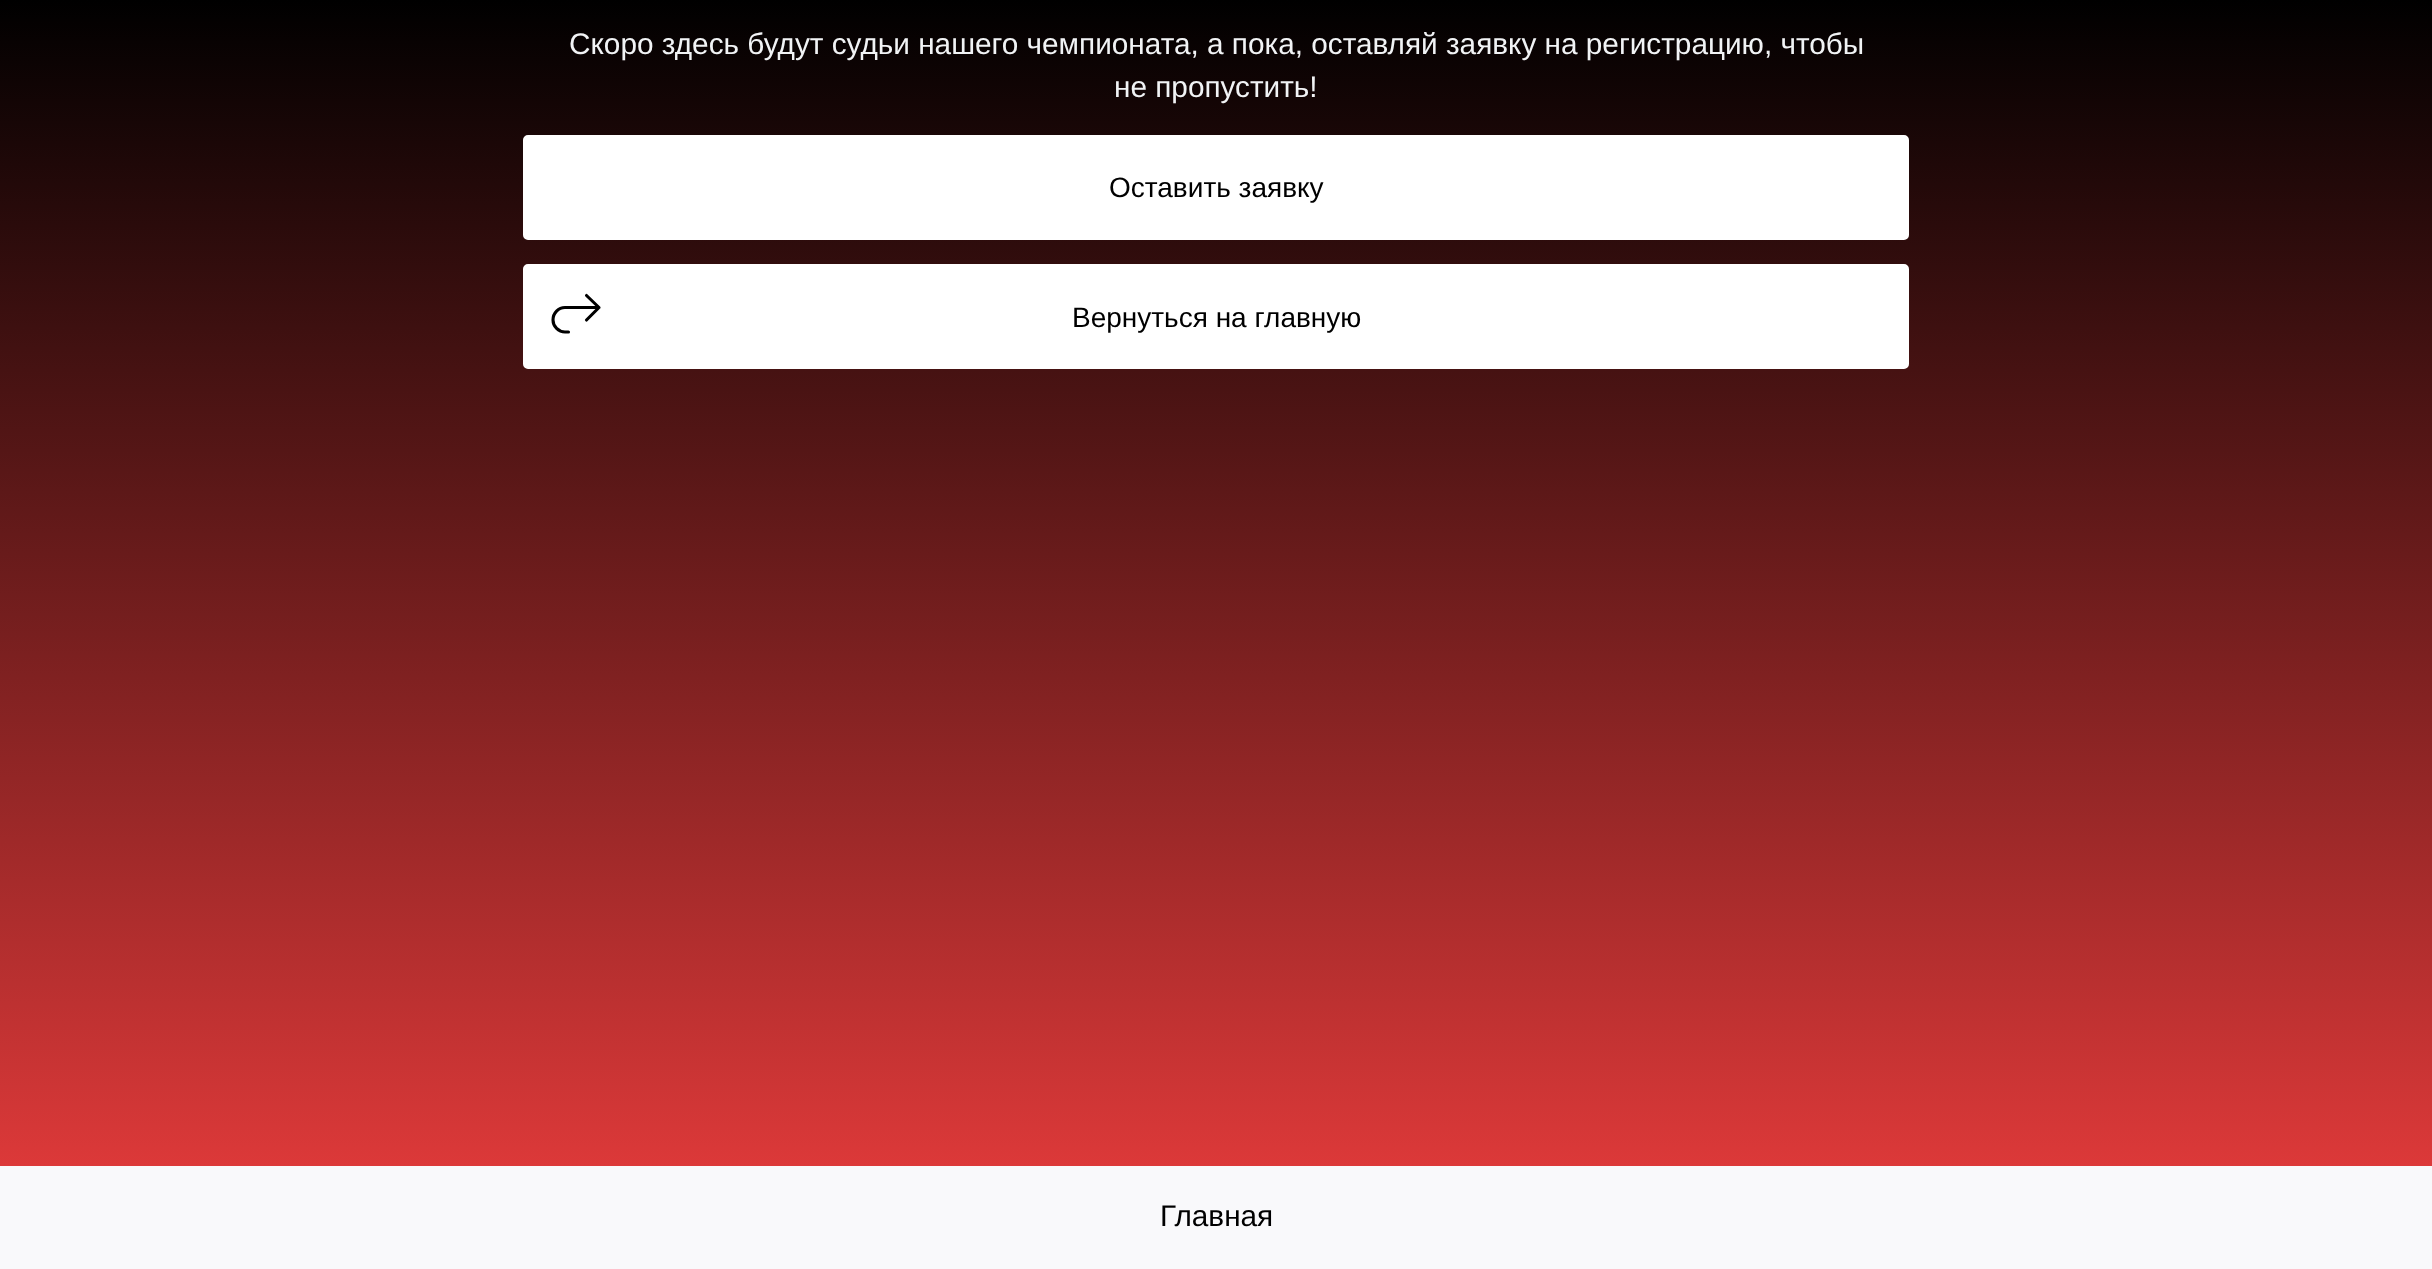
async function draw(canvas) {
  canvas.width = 2432;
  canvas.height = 1269;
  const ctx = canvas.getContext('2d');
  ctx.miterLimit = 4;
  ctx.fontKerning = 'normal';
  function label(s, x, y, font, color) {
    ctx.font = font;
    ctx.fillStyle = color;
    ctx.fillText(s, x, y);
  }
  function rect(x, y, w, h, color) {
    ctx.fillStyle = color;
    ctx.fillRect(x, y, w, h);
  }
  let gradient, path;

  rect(0, 0, 2432, 1269, '#fff');
  gradient = ctx.createLinearGradient(1216, 0, 1216, 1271);
  gradient.addColorStop(0, '#000');
  gradient.addColorStop(1, '#f03e3e');
  ctx.fillStyle = gradient;
  ctx.fillRect(0, 0, 2432, 1166);
  label('Скоро здесь будут судьи нашего чемпионата, а пока, оставляй заявку на регистрацию, чтобы', 569, 54, '29.75px Liberation Sans', '#f1f3f5');
  label('не пропустить!', 1114, 97, '29.75px Liberation Sans', '#f1f3f5');
  ctx.fillStyle = '#fff';
  ctx.beginPath();
  ctx.roundRect(525, 137, 1382, 101, 3);
  ctx.fill();
  ctx.strokeStyle = '#fff';
  ctx.lineWidth = 4;
  ctx.stroke();
  label('Оставить заявку', 1109, 197, '28px Liberation Sans', '#000');
  ctx.fillStyle = '#fff';
  ctx.beginPath();
  ctx.roundRect(525, 266, 1382, 101, 3);
  ctx.fill();
  ctx.stroke();
  path = new Path2D('M586.5 320L599 307.5L586.5 295.5M599 307.5H565C558.5 307.5 553 313 553 320C553 326.5 558.5 332 565 332H568.5');
  ctx.strokeStyle = '#000';
  ctx.lineWidth = 3.1;
  ctx.lineCap = 'round';
  ctx.lineJoin = 'round';
  ctx.stroke(path);
  label('Вернуться на главную', 1072, 327, '28px Liberation Sans', '#000');
  rect(0, 1166, 2432, 103, '#f9f9fb');
  label('Главная', 1160, 1226, '29.75px Liberation Sans', '#000');
}

draw(document.querySelector('canvas'));
